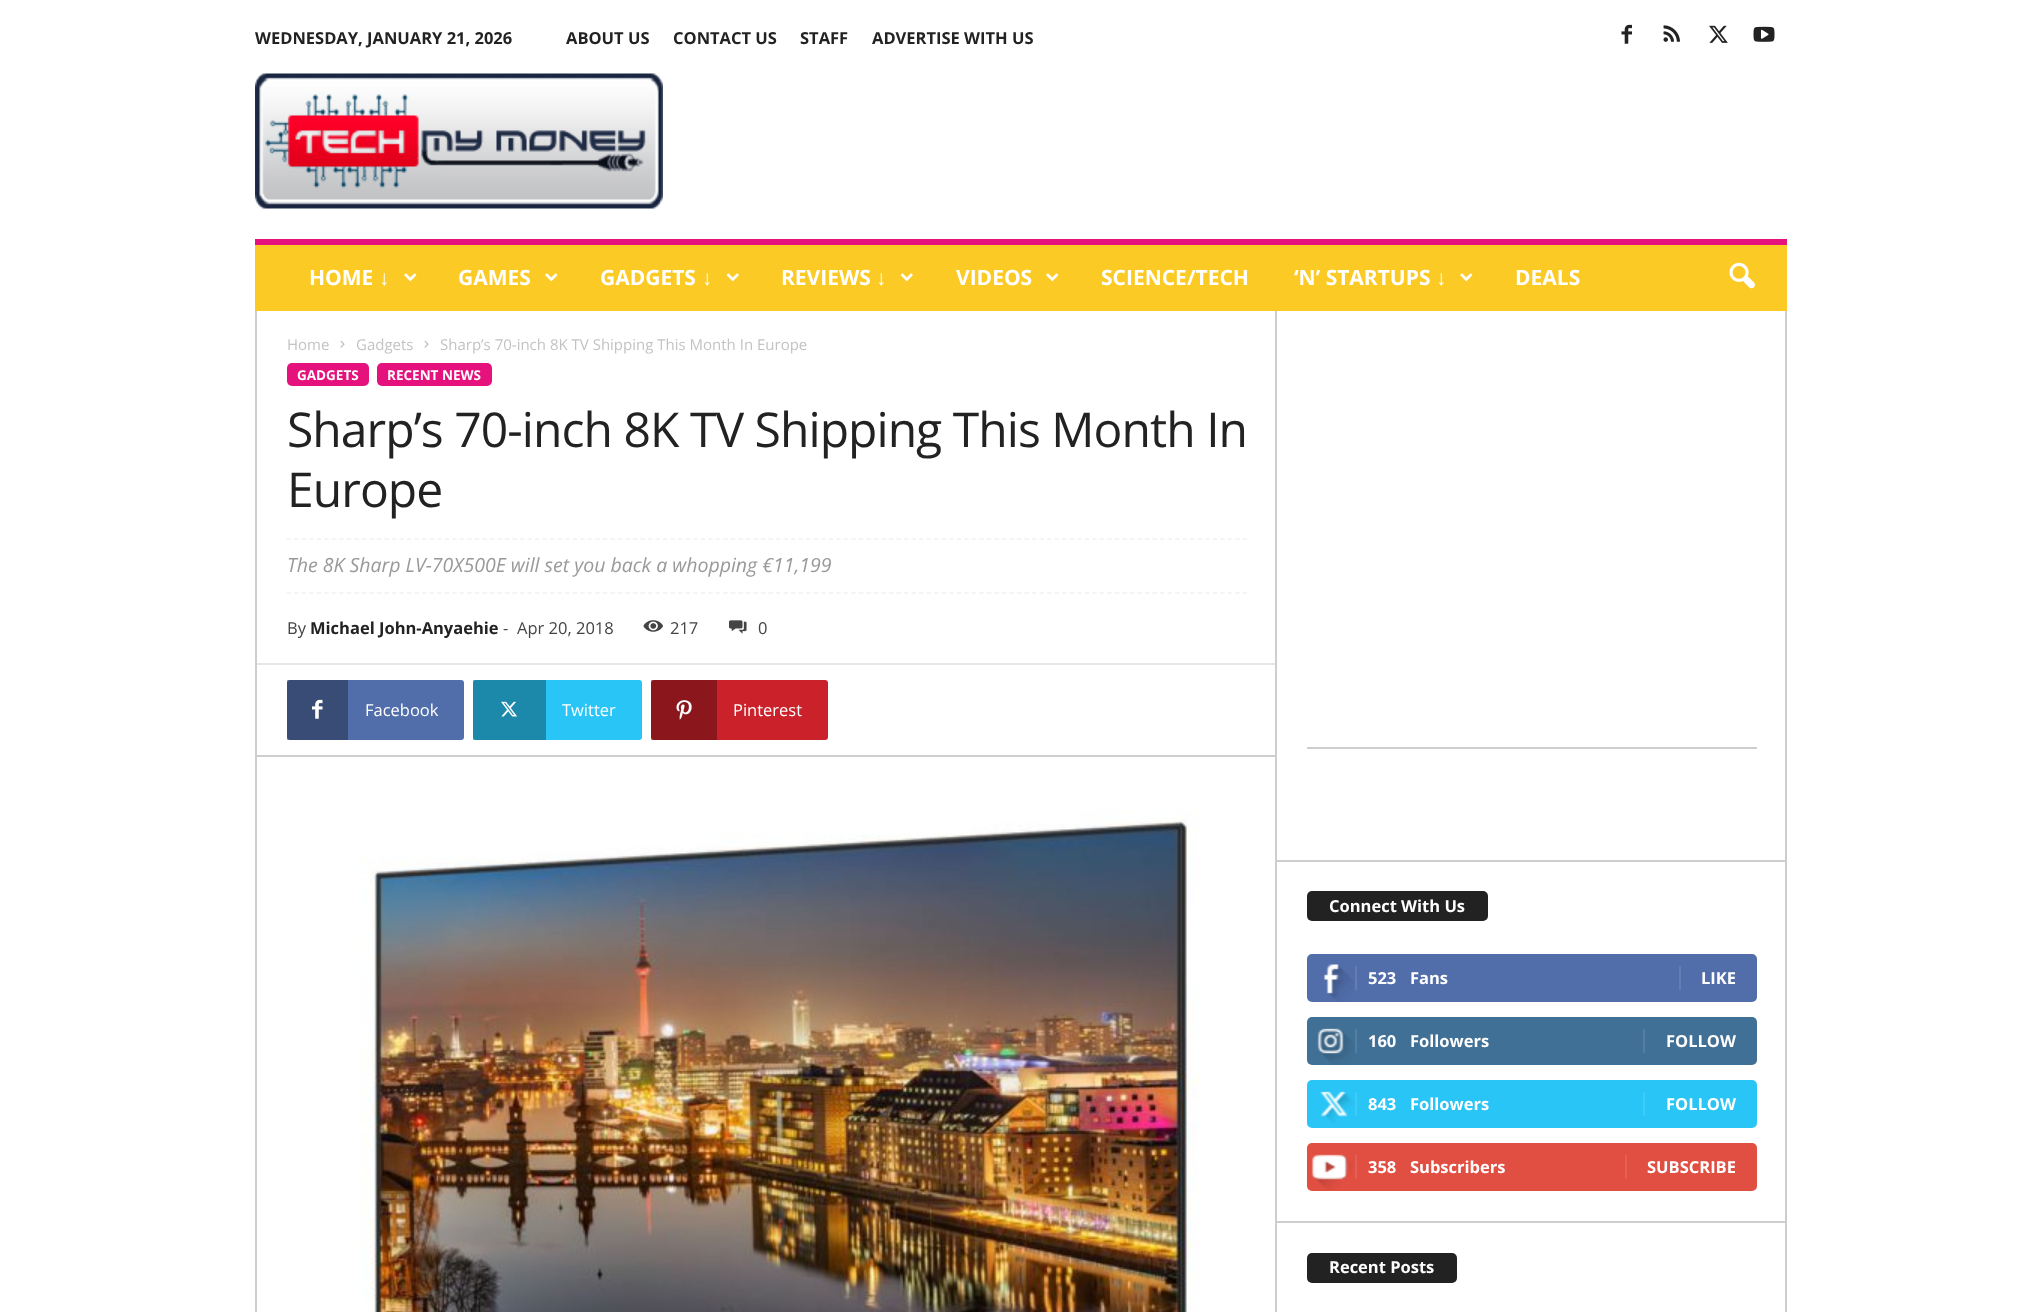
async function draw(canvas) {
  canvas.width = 2041;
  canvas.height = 1312;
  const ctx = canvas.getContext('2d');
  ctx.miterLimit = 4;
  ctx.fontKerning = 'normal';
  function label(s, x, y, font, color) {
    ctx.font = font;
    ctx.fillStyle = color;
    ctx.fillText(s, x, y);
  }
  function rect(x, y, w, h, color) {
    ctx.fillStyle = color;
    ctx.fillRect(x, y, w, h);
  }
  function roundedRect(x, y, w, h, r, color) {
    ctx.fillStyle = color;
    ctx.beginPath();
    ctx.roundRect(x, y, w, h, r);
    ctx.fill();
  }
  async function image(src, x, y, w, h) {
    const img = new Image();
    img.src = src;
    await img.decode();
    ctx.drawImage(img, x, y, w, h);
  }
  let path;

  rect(0, 0, 2041, 1312, '#fff');
  rect(651, 680, 3, 60, '#b0b0b0');
  rect(473, 680, 3, 60, '#b0b0b0');
  rect(287, 680, 3, 60, '#b0b0b0');
  label('WEDNESDAY, JANUARY 21, 2026', 255, 44, 'bold 16.5px Open Sans', '#222');
  label('ABOUT US', 566, 44, 'bold 16.5px Open Sans', '#222');
  label('CONTACT US', 673, 44, 'bold 16.5px Open Sans', '#222');
  label('STAFF', 800, 44, 'bold 16.5px Open Sans', '#222');
  label('ADVERTISE WITH US', 872, 44, 'bold 16.5px Open Sans', '#222');
  await image('assets/img1.png', 1621, 24, 11, 20);
  await image('assets/img2.png', 1663, 25, 17, 17);
  await image('assets/img3.png', 1709, 25, 19, 18);
  await image('assets/img4.png', 1753, 26, 22, 16);
  await image('assets/img5.png', 255, 73, 408, 136);
  rect(255, 245, 1532, 66, '#fcca25');
  rect(255, 239, 1532, 6, '#e5127d');
  label('HOME', 309, 285, 'bold 21px Open Sans', '#fff');
  label('↓', 379, 285, 'bold 21px Liberation Sans', '#fff');
  await image('assets/img6.png', 404, 273, 13, 9);
  label('GAMES', 458, 285, 'bold 21px Open Sans', '#fff');
  await image('assets/img6.png', 545, 273, 13, 9);
  label('GADGETS', 600, 285, 'bold 21px Open Sans', '#fff');
  label('↓', 702, 285, 'bold 21px Liberation Sans', '#fff');
  await image('assets/img7.png', 726, 273, 13, 9);
  label('REVIEWS', 781, 285, 'bold 21px Open Sans', '#fff');
  label('↓', 876, 285, 'bold 21px Liberation Sans', '#fff');
  await image('assets/img7.png', 900, 273, 13, 9);
  label('VIDEOS', 956, 285, 'bold 21px Open Sans', '#fff');
  await image('assets/img6.png', 1046, 273, 13, 9);
  label('SCIENCE/TECH', 1101, 285, 'bold 21px Open Sans', '#fff');
  label('‘N’ STARTUPS', 1294, 285, 'bold 21px Open Sans', '#fff');
  label('↓', 1436, 285, 'bold 21px Liberation Sans', '#fff');
  await image('assets/img6.png', 1460, 273, 13, 9);
  label('DEALS', 1515, 285, 'bold 21px Open Sans', '#fff');
  await image('assets/img8.png', 1729, 262, 26, 27);
  rect(255, 311, 2, 1001, '#cecece');
  label('Home', 287, 350, '15px Open Sans', '#c3c3c3');
  await image('assets/img9.png', 340, 340, 5, 8);
  label('Gadgets', 356, 350, '15px Open Sans', '#c3c3c3');
  await image('assets/img9.png', 424, 340, 5, 8);
  label('Sharp’s 70-inch 8K TV Shipping This Month In Europe', 440, 350, '15px Open Sans', '#c3c3c3');
  roundedRect(287, 363, 82, 23, 5, '#e5127d');
  label('GADGETS', 297, 380, 'bold 13.5px Open Sans', '#fff');
  roundedRect(377, 363, 115, 23, 5, '#e5127d');
  label('RECENT NEWS', 387, 380, 'bold 13.5px Open Sans', '#fff');
  ctx.letterSpacing = '-0.95px';
  label('Sharp’s 70-inch 8K TV Shipping This Month In', 287, 447, '48px Open Sans', '#222');
  label('Europe', 287, 507, '48px Open Sans', '#222');
  path = new Path2D('M286.5 539H1246.5');
  ctx.strokeStyle = '#f1f1f1';
  ctx.lineWidth = 1.5;
  ctx.setLineDash([4.5, 3.03]);
  ctx.stroke(path);
  path = new Path2D('M286.5 593H1246.5');
  ctx.stroke(path);
  ctx.letterSpacing = '0px';
  label('The 8K Sharp LV-70X500E will set you back a whopping €11,199', 287, 572, 'italic 19.5px Open Sans', '#999');
  label('By', 287, 634, '16.5px Open Sans', '#444');
  label('Michael John-Anyaehie', 310, 634, 'bold 16.5px Open Sans', '#222');
  label('-', 503, 634, '16.5px Open Sans', '#444');
  label('Apr 20, 2018', 517, 634, '16.5px Open Sans', '#444');
  await image('assets/img10.png', 643, 620, 20, 12);
  label('217', 670, 634, '16.5px Open Sans', '#444');
  await image('assets/img11.png', 729, 620, 18, 14);
  label('0', 758, 634, '16.5px Open Sans', '#444');
  rect(257, 663, 1018, 2, '#e6e6e6');
  ctx.fillStyle = '#516eab';
  ctx.beginPath();
  ctx.roundRect(339, 680, 125, 60, [0, 3, 3, 0]);
  ctx.fill();
  ctx.fillStyle = '#384c76';
  ctx.beginPath();
  ctx.roundRect(287, 680, 61, 60, [3, 0, 0, 3]);
  ctx.fill();
  await image('assets/img12.png', 312, 699, 11, 20);
  label('Facebook', 365, 716, '16.5px Open Sans', '#fff');
  ctx.fillStyle = '#29c5f6';
  ctx.beginPath();
  ctx.roundRect(537, 680, 105, 60, [0, 3, 3, 0]);
  ctx.fill();
  ctx.fillStyle = '#1c88aa';
  ctx.beginPath();
  ctx.roundRect(473, 680, 73, 60, [3, 0, 0, 3]);
  ctx.fill();
  await image('assets/img13.png', 501, 701, 16, 16);
  label('Twitter', 562, 716, '16.5px Open Sans', '#fff');
  ctx.fillStyle = '#ca212a';
  ctx.beginPath();
  ctx.roundRect(708, 680, 120, 60, [0, 3, 3, 0]);
  ctx.fill();
  ctx.fillStyle = '#8b171d';
  ctx.beginPath();
  ctx.roundRect(651, 680, 66, 60, [3, 0, 0, 3]);
  ctx.fill();
  await image('assets/img14.png', 676, 700, 16, 20);
  label('Pinterest', 733, 716, '16.5px Open Sans', '#fff');
  rect(257, 755, 1018, 2, '#cecece');
  await image('assets/img15.png', 359, 810, 841, 502);
  rect(1275, 311, 2, 1001, '#cecece');
  rect(1307, 747, 450, 2, '#cecece');
  rect(1277, 860, 508, 2, '#cecece');
  roundedRect(1307, 891, 181, 30, 5, '#222');
  label('Connect With Us', 1329, 912, 'bold 16.5px Open Sans', '#fff');
  roundedRect(1307, 954, 450, 48, 5, '#516eab');
  await image('assets/img16.png', 1323, 964, 31, 38);
  rect(1355, 966, 2, 24, '#627db3');
  label('523', 1368, 984, 'bold 16.5px Open Sans', '#fff');
  label('Fans', 1410, 984, 'bold 16.5px Open Sans', '#fff');
  rect(1679, 966, 2, 24, '#627db3');
  label('LIKE', 1701, 984, 'bold 16.5px Open Sans', '#fff');
  roundedRect(1307, 1017, 450, 48, 5, '#417096');
  await image('assets/img17.png', 1317, 1028, 37, 37);
  rect(1355, 1029, 2, 24, '#547ea1');
  label('160', 1368, 1047, 'bold 16.5px Open Sans', '#fff');
  label('Followers', 1410, 1047, 'bold 16.5px Open Sans', '#fff');
  rect(1643, 1029, 2, 24, '#547ea1');
  label('FOLLOW', 1666, 1047, 'bold 16.5px Open Sans', '#fff');
  roundedRect(1307, 1080, 450, 48, 5, '#29c5f6');
  await image('assets/img18.png', 1319, 1091, 35, 32);
  rect(1355, 1092, 2, 24, '#3ecbf7');
  label('843', 1368, 1110, 'bold 16.5px Open Sans', '#fff');
  label('Followers', 1410, 1110, 'bold 16.5px Open Sans', '#fff');
  rect(1643, 1092, 2, 24, '#3ecbf7');
  label('FOLLOW', 1666, 1110, 'bold 16.5px Open Sans', '#fff');
  roundedRect(1307, 1143, 450, 48, 5, '#e14e42');
  await image('assets/img19.png', 1311, 1154, 42, 36);
  rect(1355, 1155, 2, 24, '#e46055');
  label('358', 1368, 1173, 'bold 16.5px Open Sans', '#fff');
  label('Subscribers', 1410, 1173, 'bold 16.5px Open Sans', '#fff');
  rect(1625, 1155, 2, 24, '#e46055');
  label('SUBSCRIBE', 1647, 1173, 'bold 16.5px Open Sans', '#fff');
  rect(1277, 1221, 508, 2, '#cecece');
  roundedRect(1307, 1253, 150, 30, 5, '#222');
  label('Recent Posts', 1329, 1273, 'bold 16.5px Open Sans', '#fff');
  rect(1785, 311, 2, 1001, '#cecece');
}

draw(document.querySelector('canvas'));
